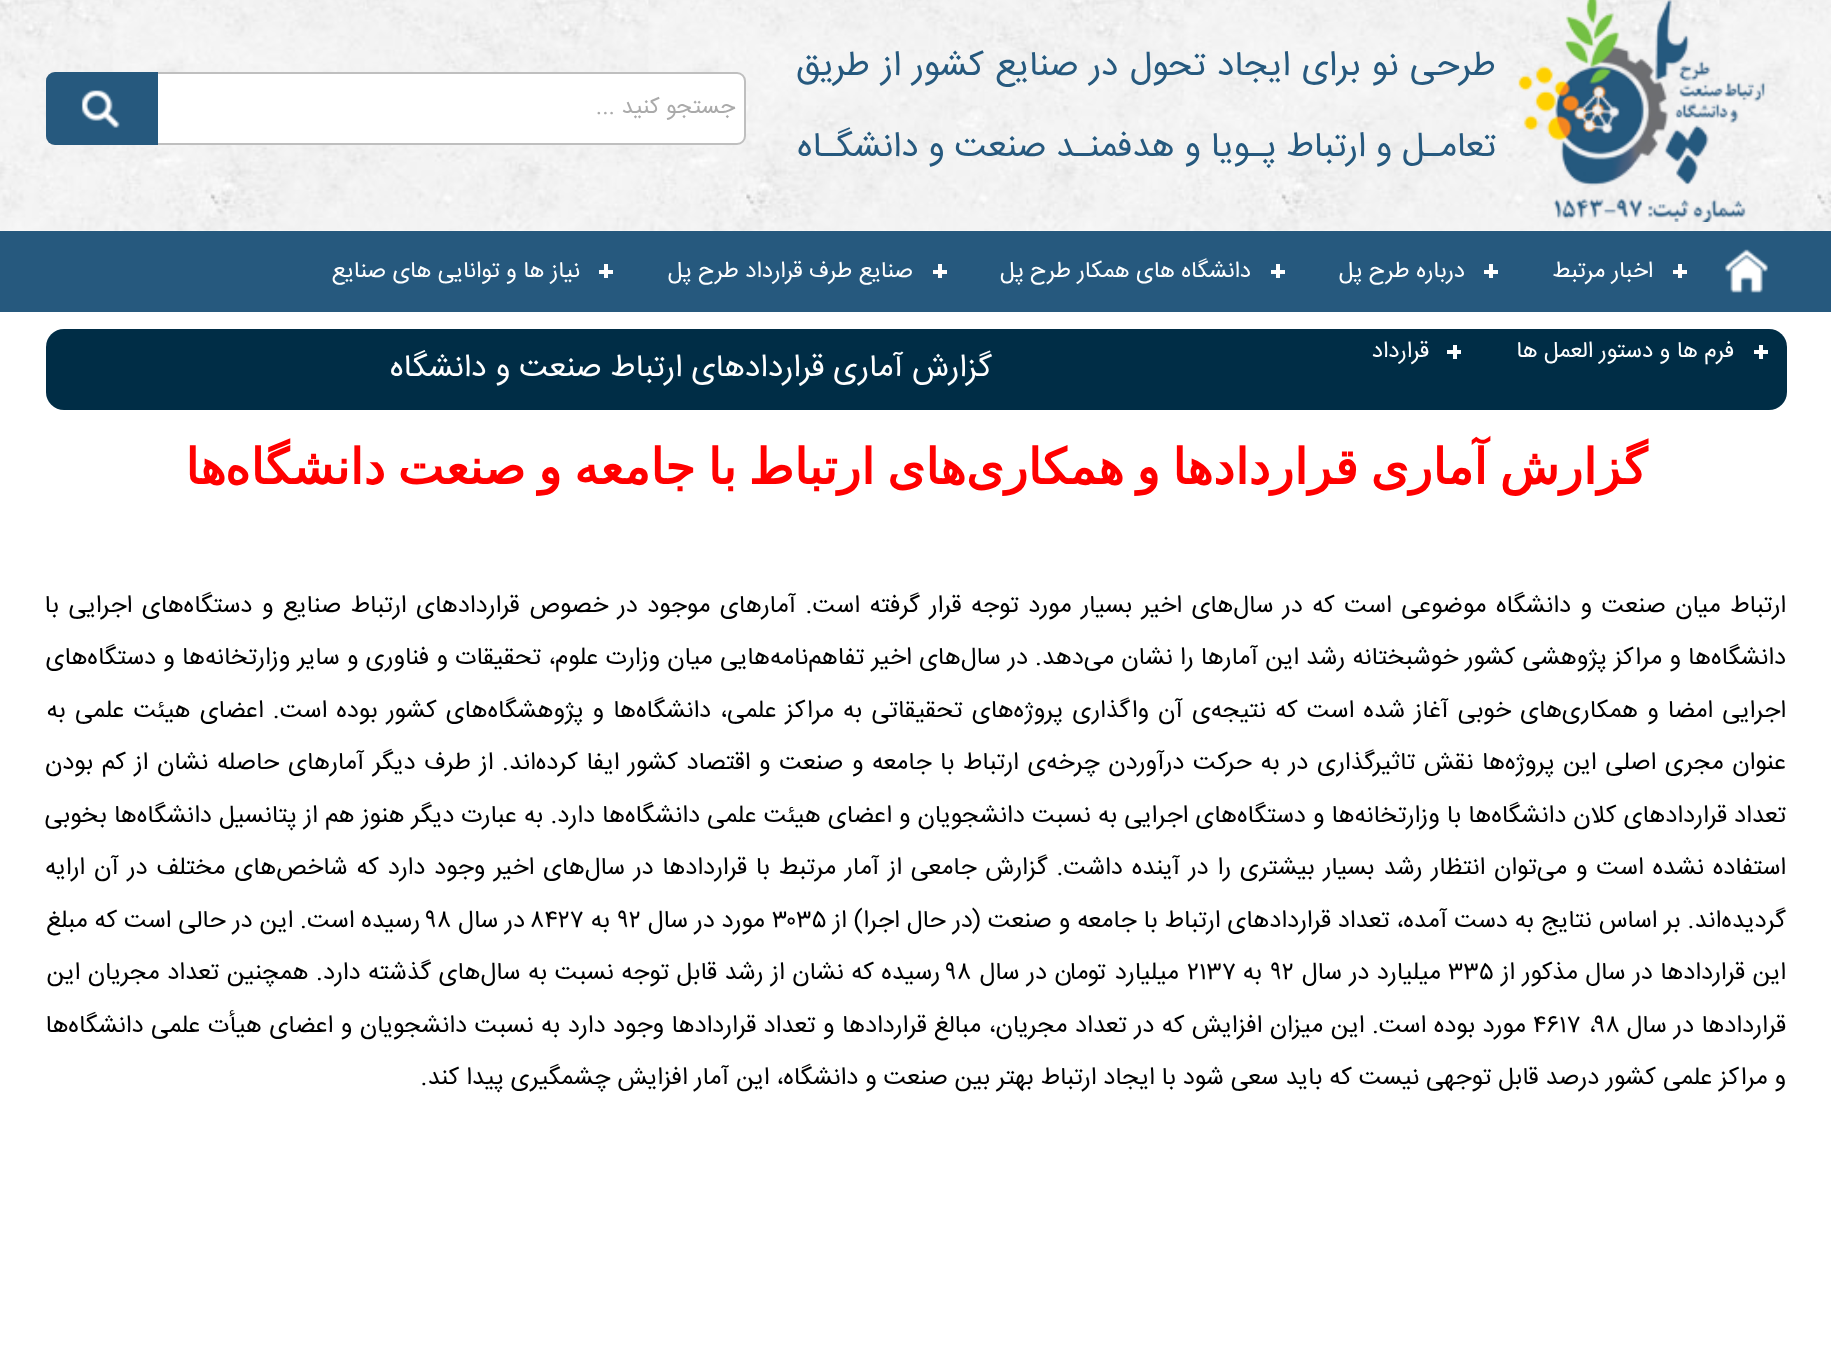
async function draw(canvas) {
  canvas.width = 1831;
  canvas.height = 1349;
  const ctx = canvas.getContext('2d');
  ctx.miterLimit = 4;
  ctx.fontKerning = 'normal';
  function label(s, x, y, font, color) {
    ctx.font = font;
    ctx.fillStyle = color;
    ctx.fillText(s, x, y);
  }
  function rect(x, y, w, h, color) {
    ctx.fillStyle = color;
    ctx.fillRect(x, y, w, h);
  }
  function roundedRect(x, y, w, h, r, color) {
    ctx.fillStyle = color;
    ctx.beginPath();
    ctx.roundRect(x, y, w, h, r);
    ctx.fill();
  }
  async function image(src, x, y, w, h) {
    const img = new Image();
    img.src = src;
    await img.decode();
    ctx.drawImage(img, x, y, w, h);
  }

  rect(0, 0, 1831, 1349, '#fff');
  await image('assets/img1.png', 0, 0, 1831, 231);
  await image('assets/img2.png', 1518, 0, 247, 222);
  ctx.wordSpacing = '1.5px';
  ctx.direction = 'rtl';
  label('طرحی نو برای ایجاد تحول در صنایع کشور از طریق', 1496, 75, '35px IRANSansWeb', '#26597e');
  ctx.wordSpacing = '0px';
  label('تعامـل و ارتباط پـویا و هدفمنـد صنعت و دانشگـاه', 1496, 156, '35px IRANSansWeb', '#26597e');
  ctx.fillStyle = '#fff';
  ctx.beginPath();
  ctx.roundRect(47, 73, 698, 71, 8);
  ctx.fill();
  ctx.strokeStyle = '#bfbfbf';
  ctx.lineWidth = 2;
  ctx.stroke();
  label('جستجو کنید ...', 735, 113, '22.75px IRANSansWeb', '#aaa');
  ctx.fillStyle = '#26597e';
  ctx.beginPath();
  ctx.roundRect(46, 72, 112, 73, [9, 0, 0, 9]);
  ctx.fill();
  await image('assets/img3.png', 81, 90, 39, 38);
  rect(0, 231, 1831, 81, '#26597e');
  await image('assets/img4.png', 1725, 249, 43, 44);
  rect(1678, 264, 4, 14, '#fff');
  label('اخبار مرتبط', 1653, 277, '22.75px IRANSansWeb', '#fff');
  rect(1673, 270, 14, 4, '#fff');
  rect(1489, 264, 4, 14, '#fff');
  label('درباره طرح پل', 1465, 277, '22.75px IRANSansWeb', '#fff');
  rect(1484, 270, 14, 4, '#fff');
  rect(1276, 264, 4, 14, '#fff');
  label('دانشگاه های همکار طرح پل', 1251, 277, '22.75px IRANSansWeb', '#fff');
  rect(1271, 270, 14, 4, '#fff');
  rect(938, 264, 4, 14, '#fff');
  label('صنایع طرف قرارداد طرح پل', 913, 277, '22.75px IRANSansWeb', '#fff');
  rect(933, 270, 14, 4, '#fff');
  rect(604, 264, 4, 14, '#fff');
  label('نیاز ها و توانایی های صنایع', 580, 277, '22.75px IRANSansWeb', '#fff');
  rect(599, 270, 14, 4, '#fff');
  roundedRect(46, 329, 1741, 81, 18, '#002d46');
  rect(1759, 345, 4, 14, '#fff');
  label('فرم ها و دستور العمل ها', 1734, 357, '22.75px IRANSansWeb', '#fff');
  rect(1754, 350, 14, 4, '#fff');
  rect(1453, 345, 4, 14, '#fff');
  label('قرارداد', 1429, 357, '22.75px IRANSansWeb', '#fff');
  rect(1447, 350, 14, 4, '#fff');
  label('گزارش آماری قراردادهای ارتباط صنعت و دانشگاه', 992, 376, '31.5px IRANSansWeb', '#fff');
  ctx.wordSpacing = '-3.25px';
  label('گزارش آماری قراردادها و همکاری', 1647, 484, 'bold 49px DejaVu Sans', '#f00');
  label('های ارتباط با جامعه و صنعت دانشگاه', 966, 484, 'bold 49px DejaVu Sans', '#f00');
  ctx.wordSpacing = '0px';
  label('ها', 226, 484, 'bold 49px DejaVu Sans', '#f00');
  ctx.wordSpacing = '2.6px';
  label('ارتباط میان صنعت و دانشگاه موضوعی است که در سال‌های اخیر بسیار مورد توجه قرار گرفته است. آمارهای موجود در خصوص قراردادهای ارتباط صنایع و دستگاه‌های اجرایی با', 1786, 612, '24.5px IRANSansWeb', '#000');
  ctx.wordSpacing = '0.3px';
  label('دانشگاه‌ها و مراکز پژوهشی کشور خوشبختانه رشد این آمارها را نشان می‌دهد. در سال‌های اخیر تفاهم‌نامه‌هایی میان وزارت علوم، تحقیقات و فناوری و سایر وزارتخانه‌ها و دستگاه‌های', 1786, 664, '24.5px IRANSansWeb', '#000');
  ctx.wordSpacing = '2.2px';
  label('اجرایی امضا و همکاری‌های خوبی آغاز شده است که نتیجه‌ی آن واگذاری پروژه‌های تحقیقاتی به مراکز علمی، دانشگاه‌ها و پژوهشگاه‌های کشور بوده است. اعضای هیئت علمی به', 1786, 717, '24.5px IRANSansWeb', '#000');
  ctx.wordSpacing = '1.7px';
  label('عنوان مجری اصلی این پروژه‌ها نقش تاثیرگذاری در به حرکت درآوردن چرخه‌ی ارتباط با جامعه و صنعت و اقتصاد کشور ایفا کرده‌اند. از طرف دیگر آمارهای حاصله نشان از کم بودن', 1786, 769, '24.5px IRANSansWeb', '#000');
  ctx.wordSpacing = '0.2px';
  label('تعداد قراردادهای کلان دانشگاه‌ها با وزارتخانه‌ها و دستگاه‌های اجرایی به نسبت دانشجویان و اعضای هیئت علمی دانشگاه‌ها دارد. به عبارت دیگر هنوز هم از پتانسیل دانشگاه‌ها بخوبی', 1786, 822, '24.5px IRANSansWeb', '#000');
  ctx.wordSpacing = '1.9px';
  label('استفاده نشده است و می‌توان انتظار رشد بسیار بیشتری را در آینده داشت. گزارش جامعی از آمار مرتبط با قراردادها در سال‌های اخیر وجود دارد که شاخص‌های مختلف در آن ارایه', 1786, 874, '24.5px IRANSansWeb', '#000');
  ctx.wordSpacing = '0px';
  label('گردیده‌اند. بر اساس نتایج به دست آمده، تعداد قراردادهای ارتباط با جامعه و صنعت (در حال اجرا) از', 1786, 927, '24.5px IRANSansWeb', '#000');
  ctx.direction = 'ltr';
  label('۳۰۳۵', 772, 927, '24.5px IRANSansWeb', '#000');
  ctx.direction = 'rtl';
  label('مورد در سال', 765, 927, '24.5px IRANSansWeb', '#000');
  ctx.direction = 'ltr';
  label('۹۲', 617, 927, '24.5px IRANSansWeb', '#000');
  ctx.direction = 'rtl';
  label('به', 610, 927, '24.5px IRANSansWeb', '#000');
  ctx.direction = 'ltr';
  label('۸۴۲۷', 532, 927, '24.5px IRANSansWeb', '#000');
  ctx.direction = 'rtl';
  label('در سال', 525, 927, '24.5px IRANSansWeb', '#000');
  ctx.direction = 'ltr';
  label('۹۸', 427, 927, '24.5px IRANSansWeb', '#000');
  ctx.direction = 'rtl';
  label('رسیده است. این در حالی است که مبلغ', 420, 927, '24.5px IRANSansWeb', '#000');
  ctx.wordSpacing = '0.6px';
  label('این قراردادها در سال مذکور از', 1786, 979, '24.5px IRANSansWeb', '#000');
  ctx.wordSpacing = '0px';
  ctx.direction = 'ltr';
  label('۳۳۵', 1448, 979, '24.5px IRANSansWeb', '#000');
  ctx.wordSpacing = '0.6px';
  ctx.direction = 'rtl';
  label('میلیارد در سال', 1441, 979, '24.5px IRANSansWeb', '#000');
  ctx.wordSpacing = '0px';
  ctx.direction = 'ltr';
  label('۹۲', 1270, 979, '24.5px IRANSansWeb', '#000');
  ctx.direction = 'rtl';
  label('به', 1262, 979, '24.5px IRANSansWeb', '#000');
  ctx.direction = 'ltr';
  label('۲۱۳۷', 1187, 979, '24.5px IRANSansWeb', '#000');
  ctx.wordSpacing = '0.6px';
  ctx.direction = 'rtl';
  label('میلیارد تومان در سال', 1179, 979, '24.5px IRANSansWeb', '#000');
  ctx.wordSpacing = '0px';
  ctx.direction = 'ltr';
  label('۹۸', 947, 979, '24.5px IRANSansWeb', '#000');
  ctx.wordSpacing = '0.6px';
  ctx.direction = 'rtl';
  label('رسیده که نشان از رشد قابل توجه نسبت به سال‌های گذشته دارد. همچنین تعداد مجریان این', 940, 979, '24.5px IRANSansWeb', '#000');
  label('قراردادها در سال', 1786, 1032, '24.5px IRANSansWeb', '#000');
  ctx.wordSpacing = '0px';
  ctx.direction = 'ltr';
  label('،۹۸', 1589, 1032, '24.5px IRANSansWeb', '#000');
  label('۴۶۱۷', 1533, 1032, '24.5px IRANSansWeb', '#000');
  ctx.wordSpacing = '0.6px';
  ctx.direction = 'rtl';
  label('مورد بوده است. این میزان افزایش که در تعداد مجریان، مبالغ قراردادها و تعداد قراردادها وجود دارد به نسبت دانشجویان و اعضای هیأت علمی دانشگاه‌ها', 1526, 1032, '24.5px IRANSansWeb', '#000');
  ctx.wordSpacing = '0px';
  label('و مراکز علمی کشور درصد قابل توجهی نیست که باید سعی شود با ایجاد ارتباط بهتر بین صنعت و دانشگاه، این آمار افزایش چشمگیری پیدا کند.', 1786, 1084, '24.5px IRANSansWeb', '#000');
}

draw(document.querySelector('canvas'));
